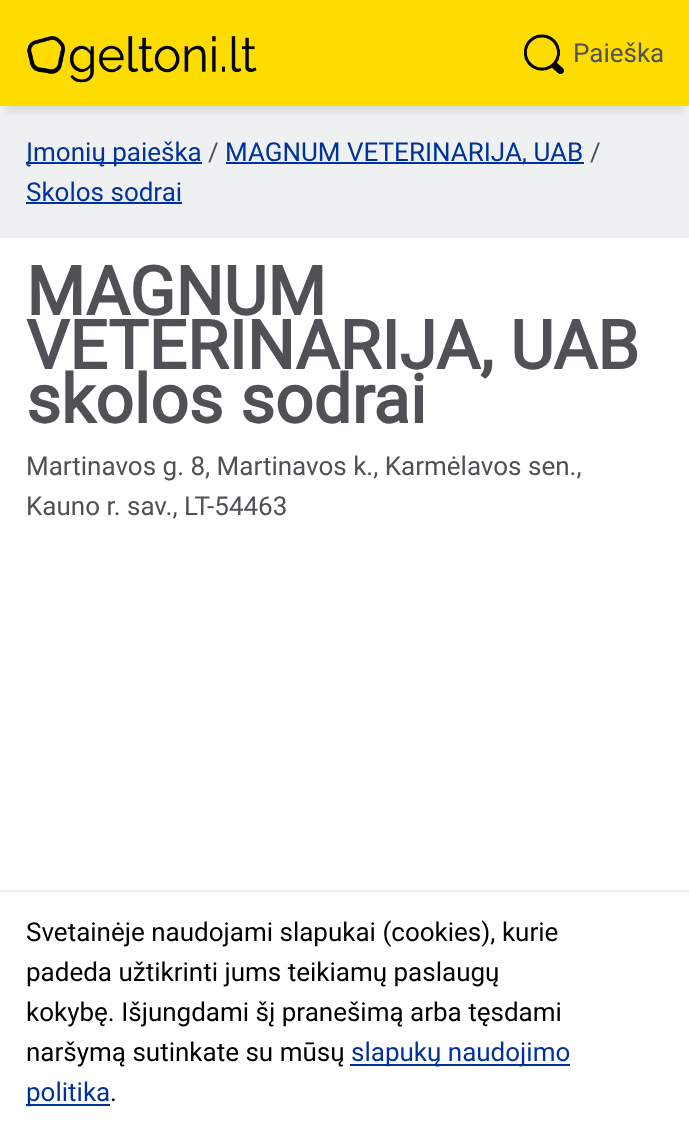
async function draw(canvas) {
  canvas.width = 689;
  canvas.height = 1134;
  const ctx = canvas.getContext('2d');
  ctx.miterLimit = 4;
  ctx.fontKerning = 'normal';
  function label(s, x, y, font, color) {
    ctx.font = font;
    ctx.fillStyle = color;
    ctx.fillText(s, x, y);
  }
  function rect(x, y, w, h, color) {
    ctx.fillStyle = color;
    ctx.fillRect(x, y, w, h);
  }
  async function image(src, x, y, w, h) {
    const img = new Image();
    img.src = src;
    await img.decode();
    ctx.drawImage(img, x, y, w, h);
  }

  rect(0, 0, 689, 1134, '#eff0f1');
  ctx.fillStyle = '#ddd';
  ctx.filter = 'blur(3px)';
  ctx.beginPath();
  ctx.rect(6, 18, 678, 94);
  ctx.fill();
  ctx.filter = 'none';
  rect(0, 0, 689, 106, '#ffdc00');
  await image('assets/img1.png', 27, 35, 230, 48);
  await image('assets/img2.png', 524, 34, 40, 40);
  label('Paieška', 573, 62, '26px Roboto', '#4f5155');
  rect(26, 162, 176, 2, '#039');
  label('Įmonių paieška', 26, 161, '26px Roboto', '#039');
  label('/', 208, 161, '26px Roboto', '#4f5155');
  rect(226, 162, 358, 2, '#039');
  label('MAGNUM VETERINARIJA, UAB', 225, 161, '26px Roboto', '#039');
  label('/', 590, 161, '26px Roboto', '#4f5155');
  label('Skolos sodrai', 26, 201, '26px Roboto', '#039');
  rect(26, 202, 156, 2, '#039');
  rect(0, 238, 689, 896, '#fff');
  label('MAGNUM', 26, 315, 'bold 67.5px Roboto', '#4f5155');
  label('VETERINARIJA, UAB', 26, 369, 'bold 67.5px Roboto', '#4f5155');
  label('skolos sodrai', 26, 423, 'bold 67.5px Roboto', '#4f5155');
  label('Martinavos g. 8, Martinavos k., Karmėlavos sen.,', 26, 475, '26px Roboto', '#4f5155');
  label('Kauno r. sav., LT-54463', 26, 515, '26px Roboto', '#4f5155');
  rect(0, 890, 689, 2, '#eee');
  label('Svetainėje naudojami slapukai (cookies), kurie', 26, 941, '26px Roboto', '#000');
  label('padeda užtikrinti jums teikiamų paslaugų', 26, 981, '26px Roboto', '#000');
  label('kokybę. Išjungdami šį pranešimą arba tęsdami', 26, 1021, '26px Roboto', '#000');
  label('naršymą sutinkate su mūsų', 26, 1061, '26px Roboto', '#000');
  rect(350, 1064, 220, 2, '#039');
  label('slapukų naudojimo', 351, 1061, '26px Roboto', '#039');
  rect(26, 1104, 84, 2, '#039');
  label('politika', 26, 1101, '26px Roboto', '#039');
  label('.', 110, 1101, '26px Roboto', '#000');
}

draw(document.querySelector('canvas'));
